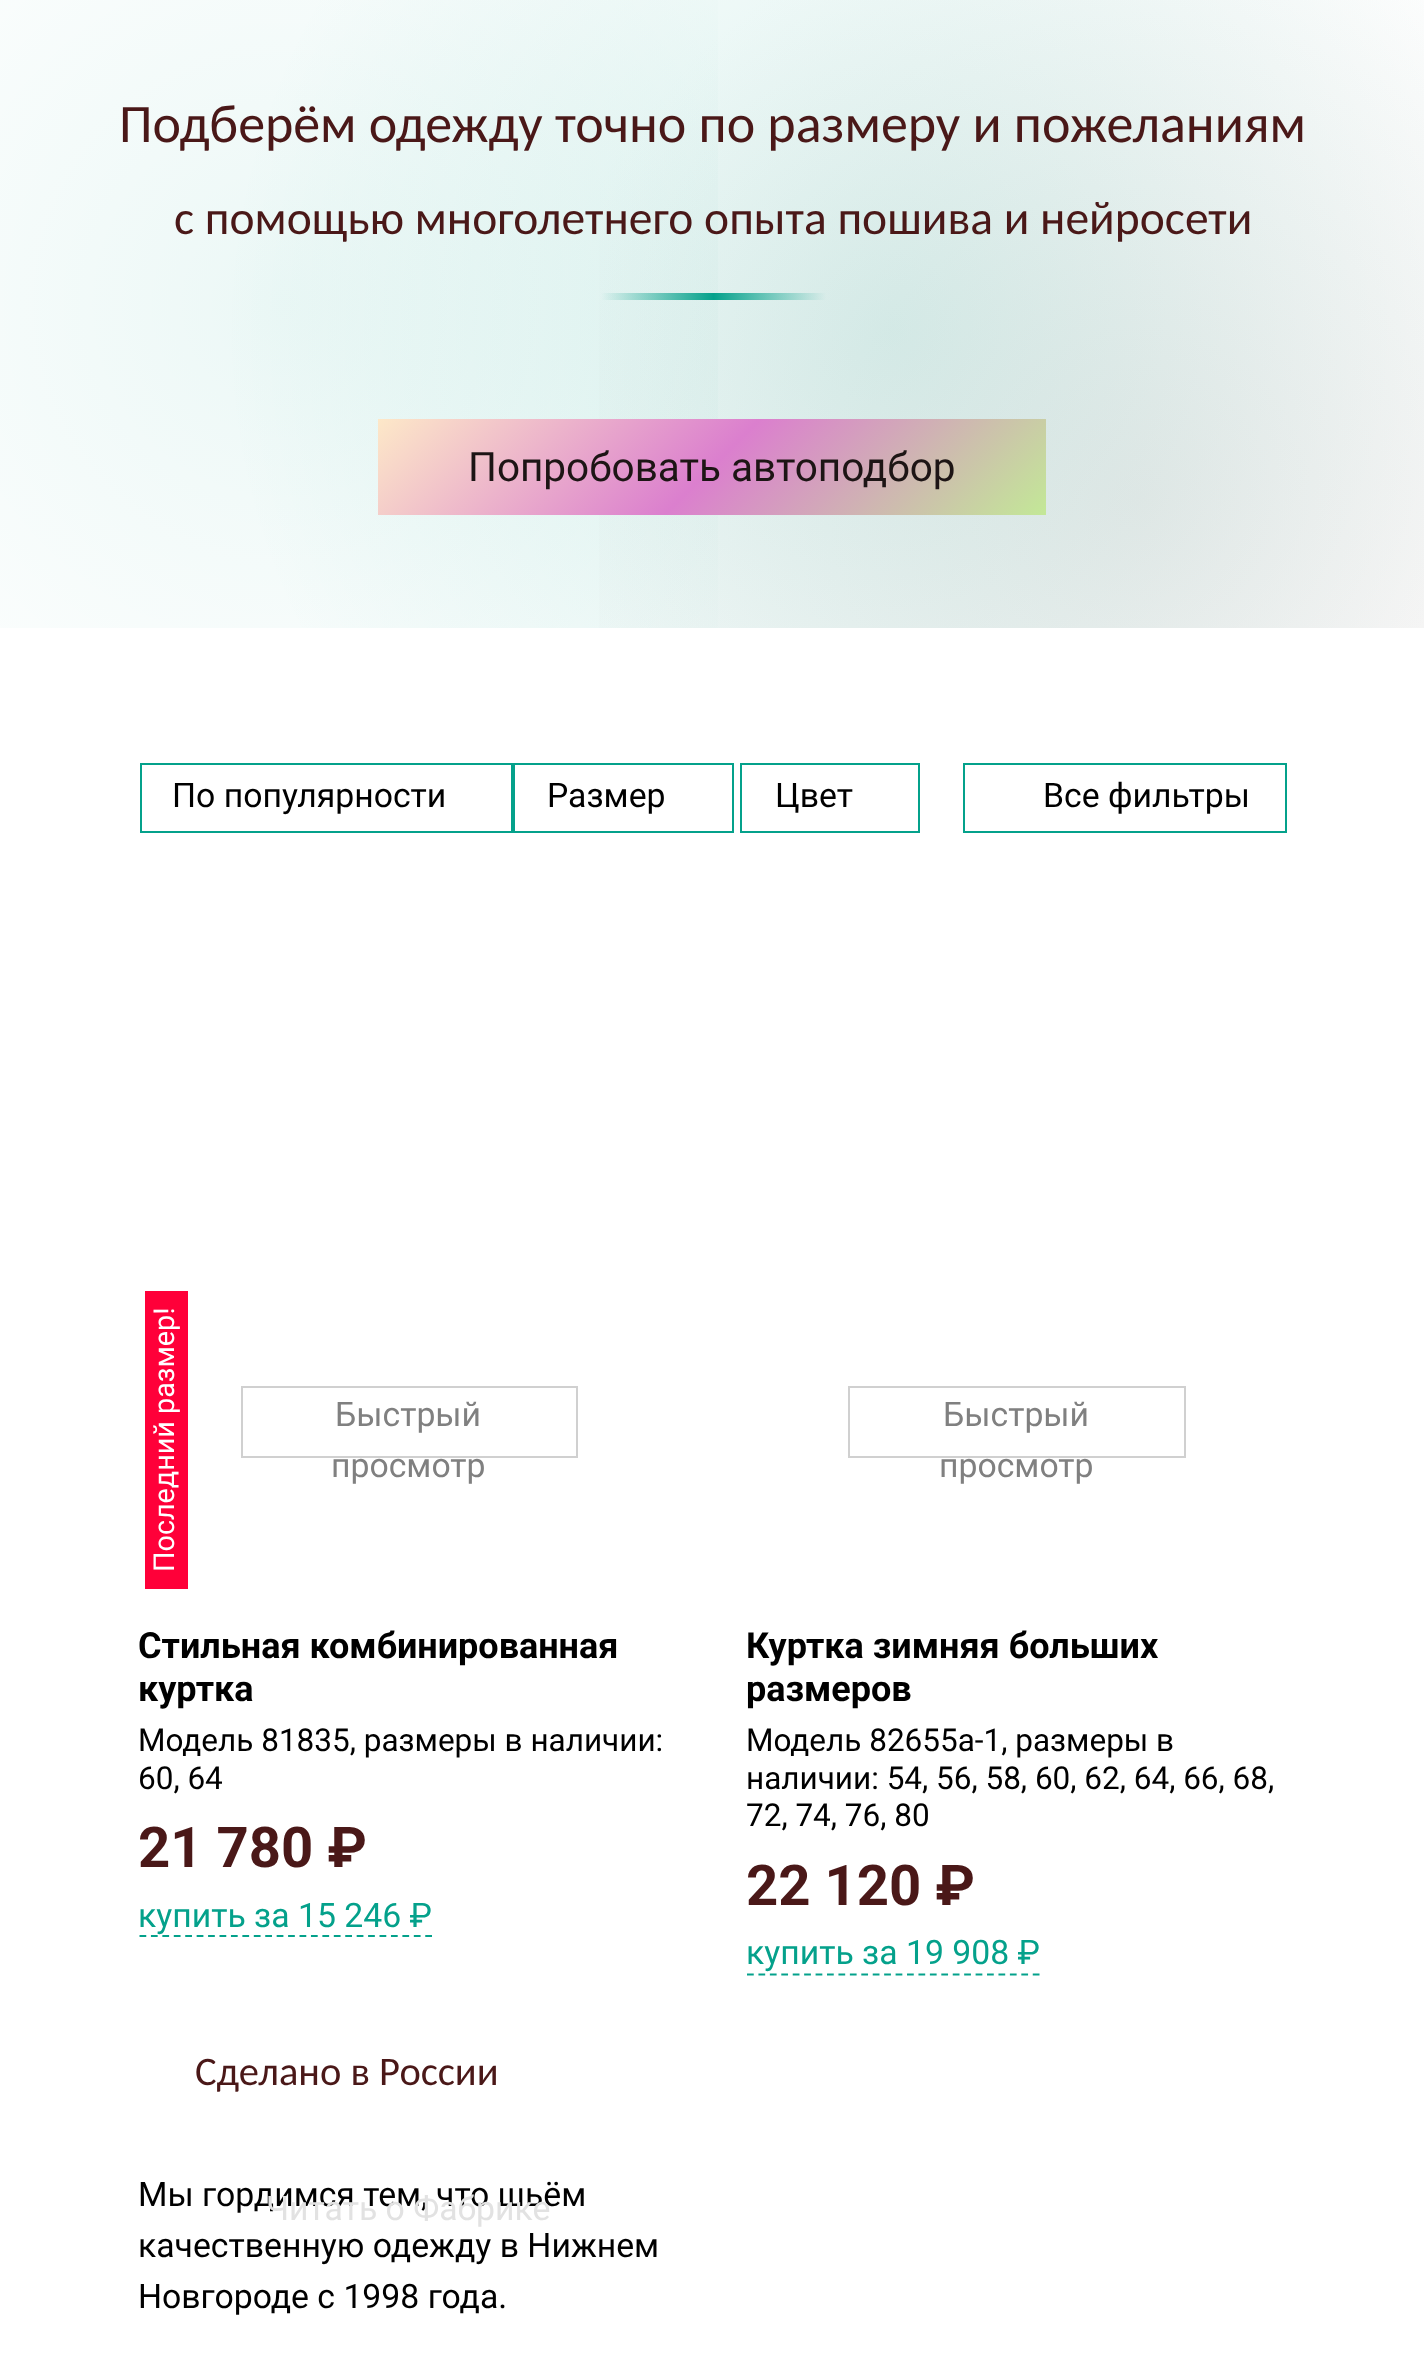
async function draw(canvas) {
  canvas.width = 1424;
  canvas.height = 2354;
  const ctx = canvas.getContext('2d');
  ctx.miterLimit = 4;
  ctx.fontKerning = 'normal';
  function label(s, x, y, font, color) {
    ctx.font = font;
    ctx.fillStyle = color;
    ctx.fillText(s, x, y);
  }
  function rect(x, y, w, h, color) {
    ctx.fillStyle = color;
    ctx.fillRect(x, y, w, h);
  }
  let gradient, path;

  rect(0, 0, 1424, 2354, '#fff');
  gradient = ctx.createRadialGradient(1139, 498, 0, 1139, 498, 1252);
  gradient.addColorStop(0, '#f1eded');
  gradient.addColorStop(0.5, '#fff');
  ctx.fillStyle = gradient;
  ctx.fillRect(599, 0, 825, 628);
  gradient = ctx.createRadialGradient(285, 304, 0, 285, 304, 1185);
  gradient.addColorStop(0, '#04a18b14');
  gradient.addColorStop(0.5, '#04a18b00');
  ctx.fillStyle = gradient;
  ctx.fillRect(0, 0, 718, 628);
  ctx.save();
  ctx.beginPath();
  ctx.rect(0, 0, 1424, 628);
  ctx.clip();
  gradient = ctx.createRadialGradient(891, 331, 0, 891, 331, 955);
  gradient.addColorStop(0, '#04a18b26');
  gradient.addColorStop(0.7, '#04a18b00');
  ctx.fillStyle = gradient;
  ctx.beginPath();
  ctx.arc(891, 331, 675, 0, 2 * Math.PI);
  ctx.fill();
  ctx.restore();
  label('Подберём одежду точно по размеру и пожеланиям', 119, 142, '54px Carlito', '#4a1818');
  label('с помощью многолетнего опыта пошива и нейросети', 174, 234, '47.5px Carlito', '#4a1818');
  gradient = ctx.createLinearGradient(601, 296, 826, 296);
  gradient.addColorStop(0, '#04a18b00');
  gradient.addColorStop(0.5, '#04a18b');
  gradient.addColorStop(1, '#04a18b00');
  ctx.fillStyle = gradient;
  ctx.fillRect(601, 293, 225, 7);
  gradient = ctx.createLinearGradient(521, 276, 903, 658);
  gradient.addColorStop(0, '#fde8c8');
  gradient.addColorStop(0.5, '#db7fce');
  gradient.addColorStop(1, '#c3e897');
  ctx.fillStyle = gradient;
  ctx.fillRect(378, 419, 668, 96);
  label('Попробовать автоподбор', 468, 481, '40.5px Roboto', '#1d1515');
  ctx.strokeStyle = '#04a18b';
  ctx.lineWidth = 2;
  ctx.strokeRect(141, 764, 371, 68);
  label('По популярности', 172, 807, '33.75px Roboto', '#000');
  ctx.strokeRect(514, 764, 219, 68);
  label('Размер', 547, 807, '33.75px Roboto', '#000');
  ctx.strokeRect(741, 764, 178, 68);
  label('Цвет', 775, 807, '33.75px Roboto', '#000');
  ctx.strokeRect(964, 764, 322, 68);
  label('Все фильтры', 1043, 807, '33.75px Roboto', '#000');
  rect(145, 1291, 43, 298, '#ff0039');
  ctx.font = '28.75px Roboto';
  ctx.fillStyle = '#fff';
  ctx.save();
  ctx.translate(174, 1572);
  ctx.rotate(-90 * Math.PI / 180);
  ctx.fillText('Последний размер!', 0, 0);
  ctx.restore();
  ctx.strokeStyle = '#d0d0d0';
  ctx.strokeRect(242, 1387, 335, 70);
  label('Быстрый', 335, 1426, '33.75px Roboto', '#808080');
  label('просмотр', 331, 1477, '33.75px Roboto', '#808080');
  label('Стильная комбинированная', 138, 1658, 'bold 36px Roboto', '#000');
  label('куртка', 138, 1701, 'bold 36px Roboto', '#000');
  label('Модель 81835, размеры в наличии:', 138, 1751, '31.5px Roboto', '#000');
  label('60, 64', 138, 1789, '31.5px Roboto', '#000');
  label('21 780 ₽', 138, 1867, 'bold 56.25px Roboto', '#4a1818');
  path = new Path2D('M139.5 1936H432');
  ctx.strokeStyle = '#04a18b';
  ctx.lineWidth = 2.2;
  ctx.setLineDash([6.75, 4.68]);
  ctx.stroke(path);
  label('купить за 15 246 ₽', 138, 1927, '33.75px Roboto', '#04a18b');
  ctx.strokeStyle = '#d0d0d0';
  ctx.lineWidth = 2;
  ctx.setLineDash([]);
  ctx.strokeRect(849, 1387, 336, 70);
  label('Быстрый', 943, 1426, '33.75px Roboto', '#808080');
  label('просмотр', 939, 1477, '33.75px Roboto', '#808080');
  label('Куртка зимняя больших', 746, 1658, 'bold 36px Roboto', '#000');
  label('размеров', 746, 1701, 'bold 36px Roboto', '#000');
  label('Модель 82655a-1, размеры в', 746, 1751, '31.5px Roboto', '#000');
  label('наличии: 54, 56, 58, 60, 62, 64, 66, 68,', 746, 1789, '31.5px Roboto', '#000');
  label('72, 74, 76, 80', 746, 1826, '31.5px Roboto', '#000');
  label('22 120 ₽', 746, 1905, 'bold 56.25px Roboto', '#4a1818');
  label('купить за 19 908 ₽', 746, 1964, '33.75px Roboto', '#04a18b');
  path = new Path2D('M747 1974.5H1039.5');
  ctx.strokeStyle = '#04a18b';
  ctx.lineWidth = 2.2;
  ctx.setLineDash([6.75, 4.68]);
  ctx.stroke(path);
  label('Сделано в России', 195, 2085, '40.5px Carlito', '#4a1818');
  label('Мы гордимся тем, что шьём', 138, 2206, '33.75px Roboto', '#000');
  label('качественную одежду в Нижнем', 138, 2257, '33.75px Roboto', '#000');
  label('Новгороде с 1998 года.', 138, 2308, '33.75px Roboto', '#000');
  label('Читать о Фабрике', 266, 2220, '33.75px Roboto', '#e2e2e2');
}

draw(document.querySelector('canvas'));
